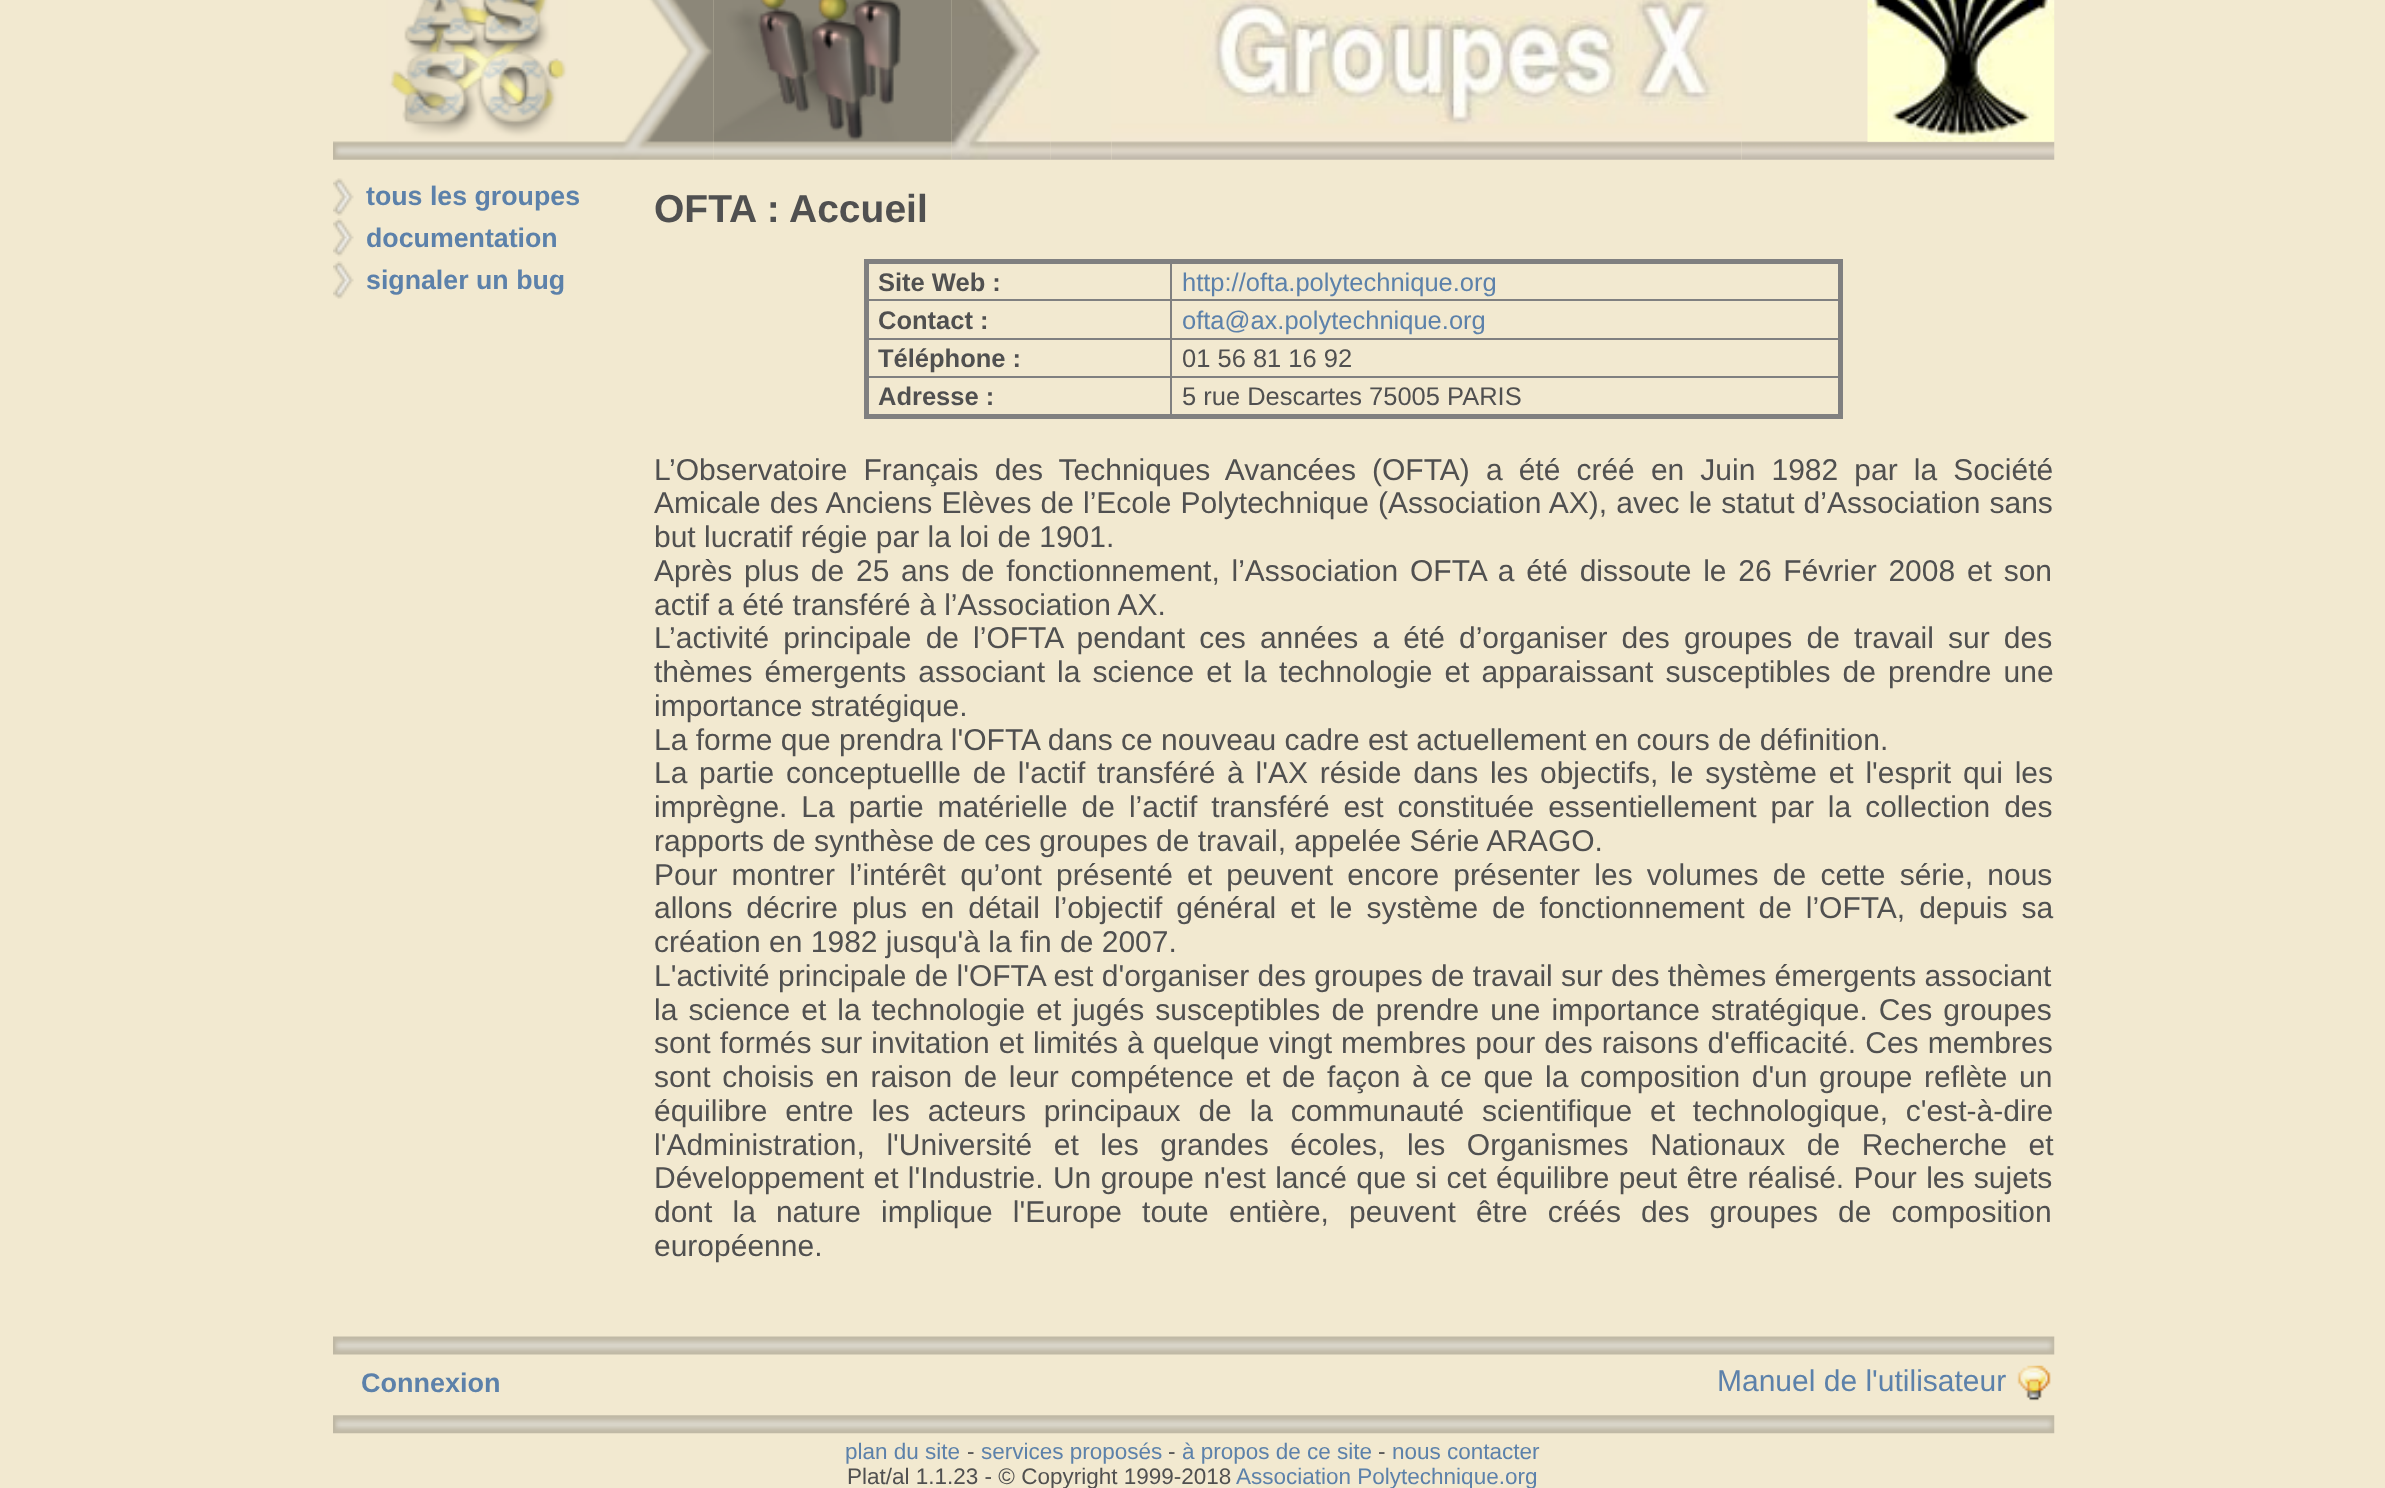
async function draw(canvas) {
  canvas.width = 2385;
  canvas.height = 1488;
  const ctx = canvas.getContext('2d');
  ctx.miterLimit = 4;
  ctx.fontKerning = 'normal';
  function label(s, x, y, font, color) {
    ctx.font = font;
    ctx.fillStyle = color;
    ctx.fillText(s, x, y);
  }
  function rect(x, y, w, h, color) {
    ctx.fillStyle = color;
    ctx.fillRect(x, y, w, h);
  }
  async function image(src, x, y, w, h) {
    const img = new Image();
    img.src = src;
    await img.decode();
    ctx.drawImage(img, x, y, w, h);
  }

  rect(0, 0, 2385, 1488, '#f2e9d0');
  await image('assets/img1.png', 333, 0, 381, 160);
  await image('assets/img2.png', 713, 0, 239, 160);
  await image('assets/img3.png', 951, 0, 100, 160);
  await image('assets/img4.png', 1050, 141, 62, 19);
  await image('assets/img6.png', 1741, 141, 314, 19);
  await image('assets/img5.png', 1111, 0, 631, 160);
  await image('assets/img7.png', 1867, 0, 188, 142);
  await image('assets/img8.png', 333, 178, 21, 38);
  label('tous les groupes', 366, 205, 'bold 26.75px Liberation Sans', '#5c81aa');
  await image('assets/img9.png', 333, 218, 21, 39);
  label('documentation', 366, 247, 'bold 26.75px Liberation Sans', '#5c81aa');
  await image('assets/img10.png', 333, 261, 21, 38);
  label('signaler un bug', 366, 289, 'bold 26.75px Liberation Sans', '#5c81aa');
  label('OFTA : Accueil', 654, 222, 'bold 39px Liberation Sans', '#505050');
  rect(1170, 299, 673, 2, '#808080');
  rect(1170, 338, 673, 2, '#808080');
  rect(1170, 376, 673, 2, '#808080');
  rect(1170, 376, 2, 43, '#808080');
  rect(866, 376, 306, 2, '#808080');
  rect(1170, 338, 2, 40, '#808080');
  rect(866, 338, 306, 2, '#808080');
  rect(1170, 299, 2, 41, '#808080');
  rect(866, 299, 306, 2, '#808080');
  rect(1170, 261, 2, 41, '#808080');
  rect(864, 259, 979, 5, '#808080');
  rect(1838, 259, 5, 160, '#808080');
  rect(864, 414, 979, 5, '#808080');
  rect(864, 259, 5, 160, '#808080');
  label('Site Web :', 878, 291, 'bold 25.5px Liberation Sans', '#505050');
  label('http://ofta.polytechnique.org', 1182, 291, '25.5px Liberation Sans', '#5c81aa');
  label('Contact :', 878, 329, 'bold 25.5px Liberation Sans', '#505050');
  label('ofta@ax.polytechnique.org', 1182, 329, '25.5px Liberation Sans', '#5c81aa');
  label('Téléphone :', 878, 367, 'bold 25.5px Liberation Sans', '#505050');
  label('01 56 81 16 92', 1182, 367, '25.5px Liberation Sans', '#505050');
  label('Adresse :', 878, 405, 'bold 25.5px Liberation Sans', '#505050');
  label('5 rue Descartes 75005 PARIS', 1182, 405, '25.5px Liberation Sans', '#505050');
  ctx.wordSpacing = '7.75px';
  label('L’Observatoire Français des Techniques Avancées (OFTA) a été créé en Juin 1982 par la Société', 654, 480, '30px Liberation Sans', '#505050');
  ctx.wordSpacing = '0.75px';
  label('Amicale des Anciens Elèves de l’Ecole Polytechnique (Association AX), avec le statut d’Association sans', 654, 513, '30px Liberation Sans', '#505050');
  ctx.wordSpacing = '0px';
  label('but lucratif régie par la loi de 1901.', 654, 547, '30px Liberation Sans', '#505050');
  ctx.wordSpacing = '3.4px';
  label('Après plus de 25 ans de fonctionnement, l’Association OFTA a été dissoute le 26 Février 2008 et son', 654, 581, '30px Liberation Sans', '#505050');
  ctx.wordSpacing = '0px';
  label('actif a été transféré à l’Association AX.', 654, 615, '30px Liberation Sans', '#505050');
  ctx.wordSpacing = '5.75px';
  label('L’activité principale de l’OFTA pendant ces années a été d’organiser des groupes de travail sur des', 654, 648, '30px Liberation Sans', '#505050');
  ctx.wordSpacing = '3.75px';
  label('thèmes émergents associant la science et la technologie et apparaissant susceptibles de prendre une', 654, 682, '30px Liberation Sans', '#505050');
  ctx.wordSpacing = '0px';
  label('importance stratégique.', 654, 716, '30px Liberation Sans', '#505050');
  label('La forme que prendra l\'OFTA dans ce nouveau cadre est actuellement en cours de définition.', 654, 750, '30px Liberation Sans', '#505050');
  ctx.wordSpacing = '3.4px';
  label('La partie conceptuellle de l\'actif transféré à l\'AX réside dans les objectifs, le système et l\'esprit qui les', 654, 783, '30px Liberation Sans', '#505050');
  ctx.wordSpacing = '5.6px';
  label('imprègne. La partie matérielle de l’actif transféré est constituée essentiellement par la collection des', 654, 817, '30px Liberation Sans', '#505050');
  ctx.wordSpacing = '0px';
  label('rapports de synthèse de ces groupes de travail, appelée Série ARAGO.', 654, 851, '30px Liberation Sans', '#505050');
  ctx.wordSpacing = '5.9px';
  label('Pour montrer l’intérêt qu’ont présenté et peuvent encore présenter les volumes de cette série, nous', 654, 885, '30px Liberation Sans', '#505050');
  ctx.wordSpacing = '5.6px';
  label('allons décrire plus en détail l’objectif général et le système de fonctionnement de l’OFTA, depuis sa', 654, 918, '30px Liberation Sans', '#505050');
  ctx.wordSpacing = '0px';
  label('création en 1982 jusqu\'à la fin de 2007.', 654, 952, '30px Liberation Sans', '#505050');
  label('L\'activité principale de l\'OFTA est d\'organiser des groupes de travail sur des thèmes émergents associant', 654, 986, '30px Liberation Sans', '#505050');
  ctx.wordSpacing = '2.75px';
  label('la science et la technologie et jugés susceptibles de prendre une importance stratégique. Ces groupes', 654, 1020, '30px Liberation Sans', '#505050');
  ctx.wordSpacing = '0.75px';
  label('sont formés sur invitation et limités à quelque vingt membres pour des raisons d\'efficacité. Ces membres', 654, 1053, '30px Liberation Sans', '#505050');
  ctx.wordSpacing = '3.25px';
  label('sont choisis en raison de leur compétence et de façon à ce que la composition d\'un groupe reflète un', 654, 1087, '30px Liberation Sans', '#505050');
  ctx.wordSpacing = '9.5px';
  label('équilibre entre les acteurs principaux de la communauté scientifique et technologique, c\'est-à-dire', 654, 1121, '30px Liberation Sans', '#505050');
  ctx.wordSpacing = '13.25px';
  label('l\'Administration, l\'Université et les grandes écoles, les Organismes Nationaux de Recherche et', 654, 1155, '30px Liberation Sans', '#505050');
  ctx.wordSpacing = '1px';
  label('Développement et l\'Industrie. Un groupe n\'est lancé que si cet équilibre peut être réalisé. Pour les sujets', 654, 1188, '30px Liberation Sans', '#505050');
  ctx.wordSpacing = '11.75px';
  label('dont la nature implique l\'Europe toute entière, peuvent être créés des groupes de composition', 654, 1222, '30px Liberation Sans', '#505050');
  ctx.wordSpacing = '0px';
  label('européenne.', 654, 1256, '30px Liberation Sans', '#505050');
  await image('assets/img11.png', 333, 1336, 1722, 19);
  label('Connexion', 361, 1392, 'bold 27px Liberation Sans', '#5c81aa');
  label('Manuel de l\'utilisateur', 1717, 1391, '30px Liberation Sans', '#5c81aa');
  await image('assets/img12.png', 2017, 1365, 34, 36);
  await image('assets/img13.png', 333, 1415, 1722, 19);
  label('plan du site', 845, 1459, '22.5px Liberation Sans', '#5c81aa');
  label('-', 967, 1459, '22.5px Liberation Sans', '#505050');
  label('services proposés', 981, 1459, '22.5px Liberation Sans', '#5c81aa');
  label('-', 1168, 1459, '22.5px Liberation Sans', '#505050');
  label('à propos de ce site', 1182, 1459, '22.5px Liberation Sans', '#5c81aa');
  label('-', 1378, 1459, '22.5px Liberation Sans', '#505050');
  label('nous contacter', 1392, 1459, '22.5px Liberation Sans', '#5c81aa');
  label('Plat/al 1.1.23 - © Copyright 1999-2018', 847, 1484, '22.5px Liberation Sans', '#505050');
  label('Association Polytechnique.org', 1236, 1484, '22.5px Liberation Sans', '#5c81aa');
}

draw(document.querySelector('canvas'));
